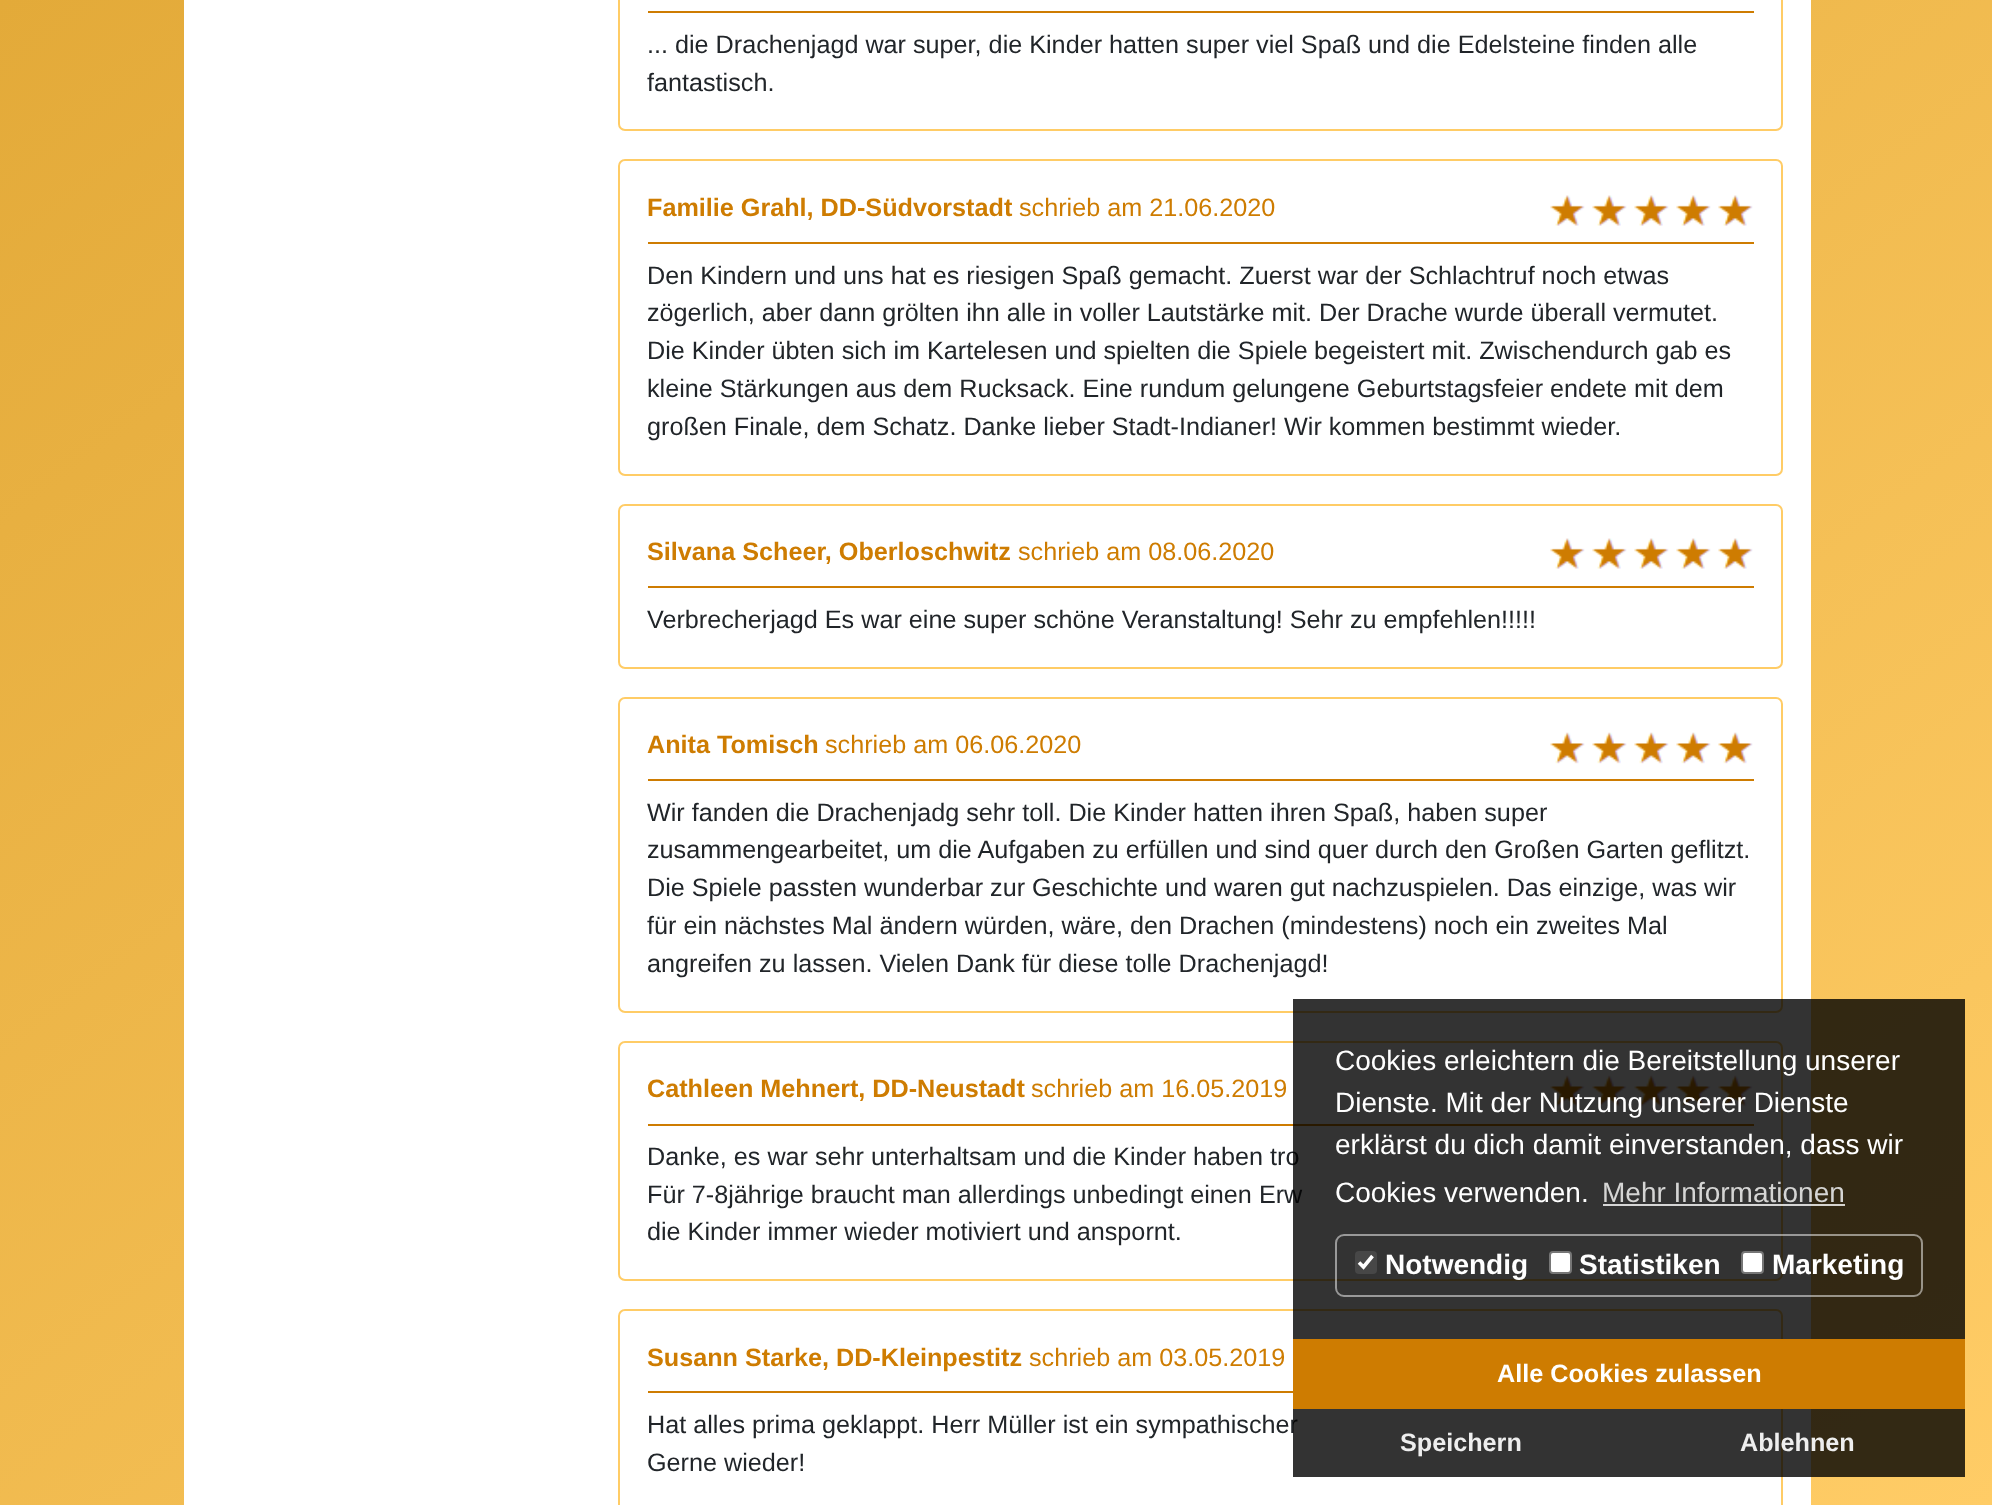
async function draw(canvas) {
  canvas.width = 1992;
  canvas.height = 1505;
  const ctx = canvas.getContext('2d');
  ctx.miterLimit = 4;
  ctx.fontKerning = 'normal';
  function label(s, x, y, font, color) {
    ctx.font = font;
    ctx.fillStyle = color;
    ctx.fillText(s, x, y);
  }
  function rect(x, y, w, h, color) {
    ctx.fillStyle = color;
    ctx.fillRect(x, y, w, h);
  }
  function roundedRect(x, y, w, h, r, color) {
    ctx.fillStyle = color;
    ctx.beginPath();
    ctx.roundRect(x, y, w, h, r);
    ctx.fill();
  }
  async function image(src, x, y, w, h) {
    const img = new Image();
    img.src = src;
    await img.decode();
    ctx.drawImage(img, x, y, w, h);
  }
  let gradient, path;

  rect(0, 0, 1992, 1505, '#fff');
  gradient = ctx.createLinearGradient(1720, 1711, 273, -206);
  gradient.addColorStop(0, '#fc6');
  gradient.addColorStop(1, '#e3aa39');
  ctx.fillStyle = gradient;
  ctx.fillRect(0, 0, 1992, 1505);
  rect(184, 0, 1627, 1505, '#fff');
  ctx.beginPath();
  ctx.roundRect(619, -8, 1163, 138, 6);
  ctx.strokeStyle = '#fc6';
  ctx.lineWidth = 2;
  ctx.stroke();
  rect(648, 11, 1106, 2, '#ce7c01');
  label('... die Drachenjagd war super, die Kinder hatten super viel Spaß und die Edelsteine finden alle', 647, 53, '25.2px Liberation Sans', '#212529');
  label('fantastisch.', 647, 91, '25.2px Liberation Sans', '#212529');
  ctx.beginPath();
  ctx.roundRect(619, 160, 1163, 315, 6);
  ctx.stroke();
  label('Familie Grahl, DD-Südvorstadt', 647, 216, 'bold 25.2px Liberation Sans', '#ce7c01');
  label('schrieb am 21.06.2020', 1019, 216, '25.2px Liberation Sans', '#ce7c01');
  await image('assets/img1.png', 1550, 195, 35, 31);
  await image('assets/img2.png', 1592, 195, 35, 31);
  await image('assets/img2.png', 1634, 195, 35, 31);
  await image('assets/img2.png', 1676, 195, 35, 31);
  await image('assets/img1.png', 1718, 195, 35, 31);
  rect(648, 242, 1106, 2, '#ce7c01');
  label('Den Kindern und uns hat es riesigen Spaß gemacht. Zuerst war der Schlachtruf noch etwas', 647, 284, '25.2px Liberation Sans', '#212529');
  label('zögerlich, aber dann grölten ihn alle in voller Lautstärke mit. Der Drache wurde überall vermutet.', 647, 321, '25.2px Liberation Sans', '#212529');
  label('Die Kinder übten sich im Kartelesen und spielten die Spiele', 647, 359, '25.2px Liberation Sans', '#212529');
  label('begeistert mit. Zwischendurch gab es', 1314, 359, '25.2px Liberation Sans', '#212529');
  label('kleine Stärkungen aus dem Rucksack. Eine rundum gelungene Geburtstagsfeier endete mit dem', 647, 397, '25.2px Liberation Sans', '#212529');
  label('großen Finale, dem Schatz. Danke lieber Stadt-Indianer! Wir kommen bestimmt wieder.', 647, 435, '25.2px Liberation Sans', '#212529');
  ctx.beginPath();
  ctx.roundRect(619, 505, 1163, 163, 6);
  ctx.stroke();
  label('Silvana Scheer, Oberloschwitz', 647, 560, 'bold 25.2px Liberation Sans', '#ce7c01');
  label('schrieb am 08.06.2020', 1018, 560, '25.2px Liberation Sans', '#ce7c01');
  await image('assets/img1.png', 1550, 538, 35, 31);
  await image('assets/img2.png', 1592, 538, 35, 31);
  await image('assets/img2.png', 1634, 538, 35, 31);
  await image('assets/img2.png', 1676, 538, 35, 31);
  await image('assets/img1.png', 1718, 538, 35, 31);
  rect(648, 586, 1106, 2, '#ce7c01');
  label('Verbrecherjagd Es war eine super schöne Veranstaltung! Sehr zu empfehlen!!!!!', 647, 628, '25.2px Liberation Sans', '#212529');
  ctx.beginPath();
  ctx.roundRect(619, 698, 1163, 314, 6);
  ctx.stroke();
  label('Anita Tomisch', 647, 753, 'bold 25.2px Liberation Sans', '#ce7c01');
  label('schrieb am 06.06.2020', 825, 753, '25.2px Liberation Sans', '#ce7c01');
  await image('assets/img3.png', 1550, 732, 35, 32);
  await image('assets/img4.png', 1592, 732, 35, 32);
  await image('assets/img4.png', 1634, 732, 35, 32);
  await image('assets/img4.png', 1676, 732, 35, 32);
  await image('assets/img3.png', 1718, 732, 35, 32);
  rect(648, 779, 1106, 2, '#ce7c01');
  label('Wir fanden die Drachenjadg sehr toll. Die Kinder hatten ihren Spaß, haben super', 647, 821, '25.2px Liberation Sans', '#212529');
  label('zusammengearbeitet, um die Aufgaben zu erfüllen und sind quer durch den Großen Garten geflitzt.', 647, 858, '25.2px Liberation Sans', '#212529');
  label('Die Spiele passten wunderbar zur Geschichte und waren gut nachzuspielen. Das einzige, was wir', 647, 896, '25.2px Liberation Sans', '#212529');
  label('für ein nächstes Mal ändern würden, wäre, den Drachen (mindestens) noch ein zweites Mal', 647, 934, '25.2px Liberation Sans', '#212529');
  label('angreifen zu lassen. Vielen Dank für diese tolle Drachenjagd!', 647, 972, '25.2px Liberation Sans', '#212529');
  ctx.beginPath();
  ctx.roundRect(619, 1042, 1163, 238, 6);
  ctx.stroke();
  label('Cathleen Mehnert, DD-Neustadt', 647, 1097, 'bold 25.2px Liberation Sans', '#ce7c01');
  label('schrieb am 16.05.2019', 1031, 1097, '25.2px Liberation Sans', '#ce7c01');
  await image('assets/img3.png', 1550, 1075, 35, 32);
  await image('assets/img4.png', 1592, 1075, 35, 32);
  await image('assets/img4.png', 1634, 1075, 35, 32);
  await image('assets/img4.png', 1676, 1075, 35, 32);
  await image('assets/img3.png', 1718, 1075, 35, 32);
  rect(648, 1124, 1106, 2, '#ce7c01');
  label('Danke, es war sehr unterhaltsam und die Kinder haben tro', 647, 1165, '25.2px Liberation Sans', '#212529');
  label('Für 7-8jährige braucht man allerdings unbedingt einen Erw', 647, 1203, '25.2px Liberation Sans', '#212529');
  label('die Kinder immer wieder motiviert und anspornt.', 647, 1240, '25.2px Liberation Sans', '#212529');
  ctx.beginPath();
  ctx.roundRect(619, 1310, 1163, 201, 6);
  ctx.stroke();
  label('Susann Starke, DD-Kleinpestitz', 647, 1366, 'bold 25.2px Liberation Sans', '#ce7c01');
  label('schrieb am 03.05.2019', 1029, 1366, '25.2px Liberation Sans', '#ce7c01');
  rect(648, 1391, 645, 2, '#ce7c01');
  label('Hat alles prima geklappt. Herr Müller ist ein sympathischer', 647, 1433, '25.2px Liberation Sans', '#212529');
  label('Gerne wieder!', 647, 1471, '25.2px Liberation Sans', '#212529');
  rect(1293, 999, 672, 478, '#000000cc');
  label('Cookies erleichtern die Bereitstellung unserer', 1335, 1070, '28px Liberation Sans', '#fff');
  label('Dienste. Mit der Nutzung unserer Dienste', 1335, 1112, '28px Liberation Sans', '#fff');
  label('erklärst du dich damit einverstanden, dass wir', 1335, 1154, '28px Liberation Sans', '#fff');
  label('Cookies verwenden.', 1335, 1202, '28px Liberation Sans', '#fff');
  label('Mehr Informationen', 1602, 1202, '28px Liberation Sans', '#d5d5d4');
  rect(1603, 1204, 242, 2, '#ffffffcc');
  ctx.beginPath();
  ctx.roundRect(1336, 1235, 586, 61, 8);
  ctx.strokeStyle = '#ffffff80';
  ctx.stroke();
  roundedRect(1355, 1251, 22, 23, 4, '#474747');
  path = new Path2D('M1359 1262.5L1363.5 1267L1372.5 1256');
  ctx.strokeStyle = '#fff';
  ctx.lineWidth = 3.6;
  ctx.stroke(path);
  label('Notwendig', 1385, 1274, 'bold 28px Liberation Sans', '#fff');
  ctx.beginPath();
  ctx.roundRect(1550, 1252, 21, 21, 3);
  ctx.fill();
  ctx.strokeStyle = '#767676';
  ctx.lineWidth = 2;
  ctx.stroke();
  label('Statistiken', 1579, 1274, 'bold 28px Liberation Sans', '#fff');
  ctx.beginPath();
  ctx.roundRect(1742, 1252, 21, 21, 3);
  ctx.fill();
  ctx.stroke();
  label('Marketing', 1772, 1274, 'bold 28px Liberation Sans', '#fff');
  rect(1293, 1339, 672, 70, '#ce7c01');
  label('Alle Cookies zulassen', 1497, 1382, 'bold 25.2px Liberation Sans', '#fff');
  label('Speichern', 1400, 1451, 'bold 25.2px Liberation Sans', '#eee');
  label('Ablehnen', 1740, 1451, 'bold 25.2px Liberation Sans', '#eee');
}

draw(document.querySelector('canvas'));
